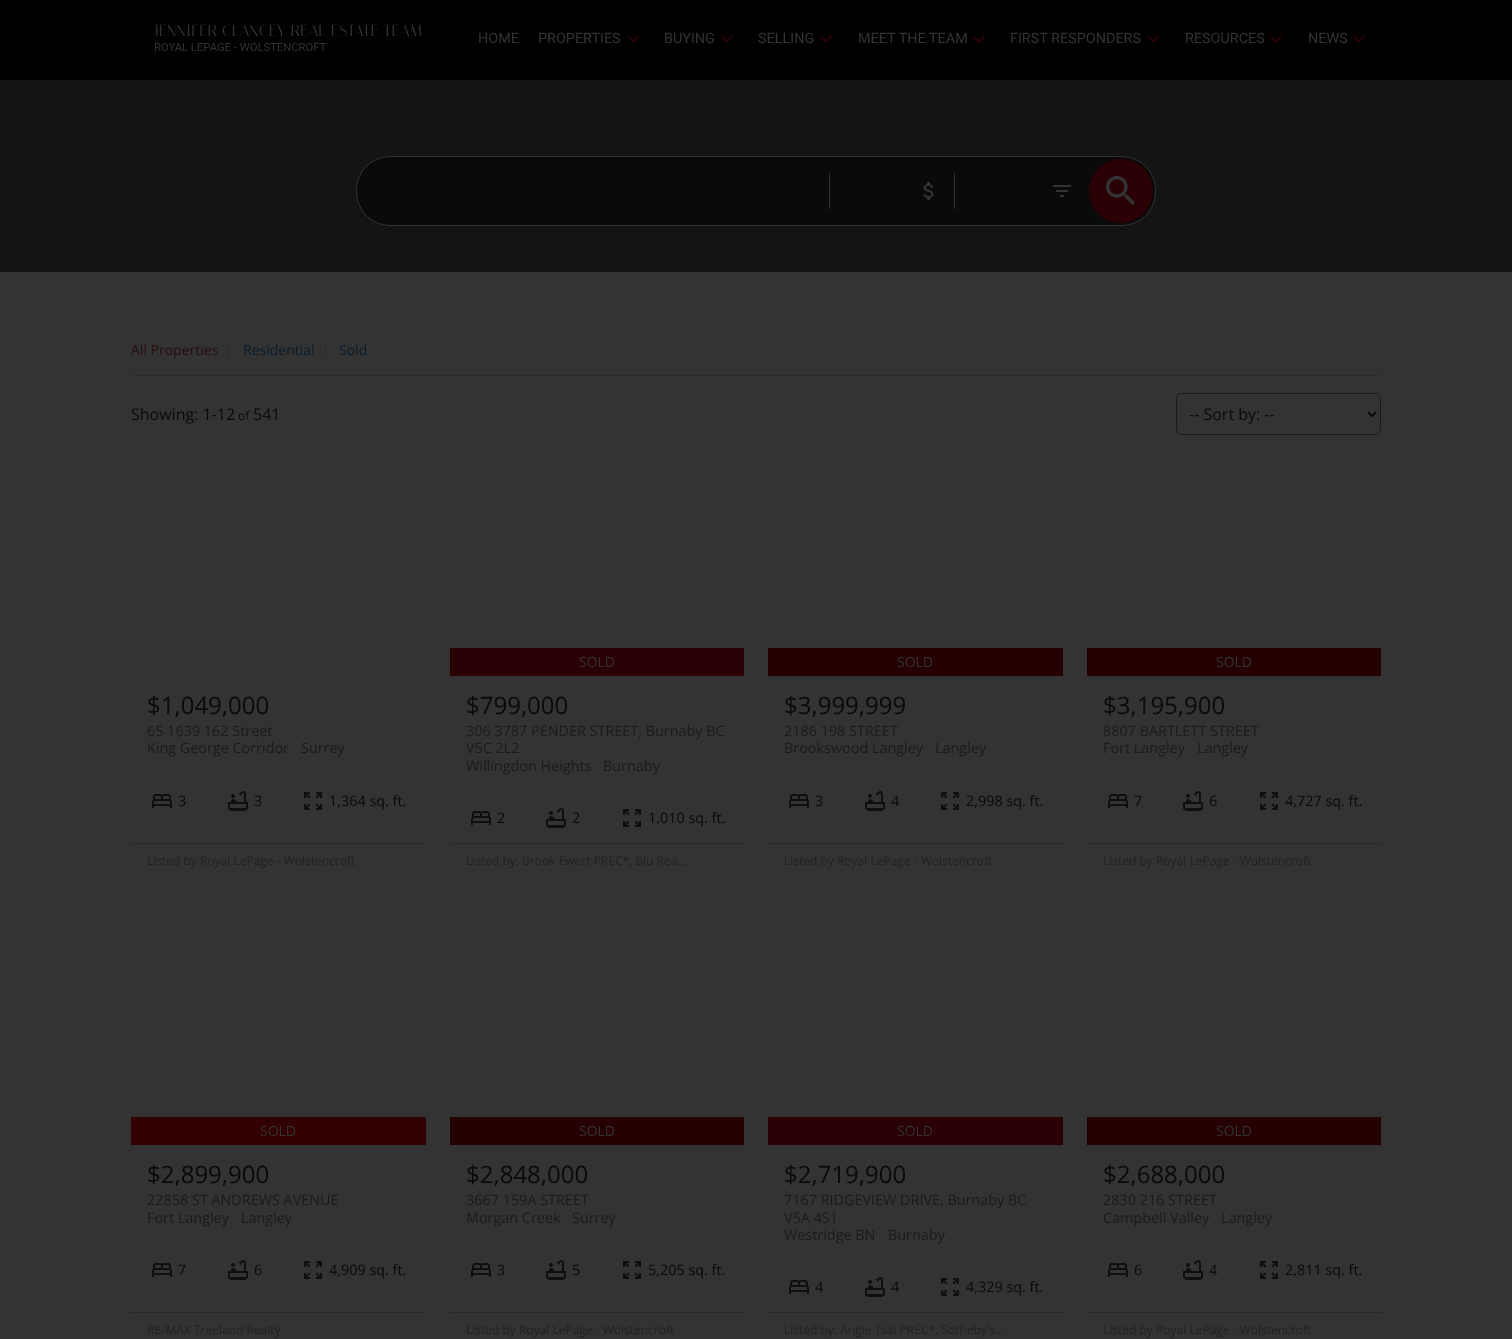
async function draw(canvas) {
  canvas.width = 1512;
  canvas.height = 1339;
  const ctx = canvas.getContext('2d');
  ctx.miterLimit = 4;
  ctx.fontKerning = 'normal';
  function label(s, x, y, font, color) {
    ctx.font = font;
    ctx.fillStyle = color;
    ctx.fillText(s, x, y);
  }
  function rect(x, y, w, h, color) {
    ctx.fillStyle = color;
    ctx.fillRect(x, y, w, h);
  }
  async function image(src, x, y, w, h) {
    const img = new Image();
    img.src = src;
    await img.decode();
    ctx.drawImage(img, x, y, w, h);
  }
  let path;

  rect(0, 0, 1512, 1339, '#333');
  rect(0, 0, 1512, 80, '#000');
  label('JENNIFER CLANCEY REAL ESTATE TEAM', 154, 36, '16px Italiana', '#333');
  label('ROYAL LEPAGE - WOLSTENCROFT', 154, 51, '11.25px Roboto', '#333');
  label('HOME', 478, 43, '14.4px Roboto', '#333');
  label('PROPERTIES', 538, 43, '14.4px Roboto', '#333');
  await image('assets/img1.png', 627, 35, 12, 8);
  label('BUYING', 664, 43, '14.4px Roboto', '#333');
  await image('assets/img1.png', 721, 35, 12, 8);
  label('SELLING', 758, 43, '14.4px Roboto', '#333');
  await image('assets/img1.png', 820, 35, 12, 8);
  label('MEET THE TEAM', 858, 43, '14.4px Roboto', '#333');
  await image('assets/img1.png', 973, 35, 12, 8);
  label('FIRST RESPONDERS', 1010, 43, '14.4px Roboto', '#333');
  await image('assets/img1.png', 1147, 35, 12, 8);
  label('RESOURCES', 1185, 43, '14.4px Roboto', '#333');
  await image('assets/img1.png', 1270, 35, 12, 8);
  label('NEWS', 1308, 43, '14.4px Roboto', '#333');
  await image('assets/img1.png', 1353, 35, 12, 8);
  rect(0, 80, 1512, 192, '#141414');
  ctx.fillStyle = '#0a0a0a';
  ctx.beginPath();
  ctx.roundRect(356.5, 156.5, 799, 69, 33.5);
  ctx.fill();
  ctx.strokeStyle = '#333';
  ctx.stroke();
  await image('assets/img2.png', 923, 182, 11, 18);
  rect(829, 173, 1, 36, '#333');
  await image('assets/img3.png', 1053, 185, 18, 12);
  rect(954, 173, 1, 36, '#333');
  ctx.fillStyle = '#2a0005';
  ctx.beginPath();
  ctx.arc(1121, 191, 32, 0, 2 * Math.PI);
  ctx.fill();
  await image('assets/img4.png', 1106, 176, 30, 30);
  rect(228, 343, 1, 14, '#2c2c2c');
  label('All Properties', 131, 355, '14px Open Sans', '#290e0e');
  rect(325, 343, 1, 14, '#2c2c2c');
  label('Residential', 243, 355, '14px Open Sans', '#0d1c28');
  label('Sold', 339, 355, '14px Open Sans', '#0d1c28');
  rect(131, 375, 1250, 1, '#2c2c2c');
  label('Showing: 1-12', 131, 420, '16px Open Sans', '#0a0a0a');
  label('of', 238, 420, '12px Open Sans', '#0a0a0a');
  label('541', 253, 420, '16px Open Sans', '#0a0a0a');
  ctx.beginPath();
  ctx.roundRect(1176.5, 393.5, 204, 41, 5.5);
  ctx.strokeStyle = '#1b1b1b';
  ctx.stroke();
  path = new Path2D('M1368 412L1372 416L1376 412');
  ctx.strokeStyle = '#0a0a0a';
  ctx.lineWidth = 2;
  ctx.stroke(path);
  label('-- Sort by: --', 1189, 420, '16px Open Sans', '#0a0a0a');
  label('$1,049,000', 147, 714, '24px Open Sans', '#0a0a0a');
  label('65 1639 162 Street', 147, 736, '14.4px Open Sans', '#1b1b1b');
  label('King George Corridor', 147, 753, '14.4px Open Sans', '#1b1b1b');
  label('Surrey', 301, 753, '14.4px Open Sans', '#1b1b1b');
  await image('assets/img5.png', 152, 794, 20, 14);
  label('3', 178, 806, '14.4px Open Sans', '#0a0a0a');
  await image('assets/img6.png', 228, 791, 20, 20);
  label('3', 254, 806, '14.4px Open Sans', '#0a0a0a');
  await image('assets/img7.png', 304, 792, 18, 18);
  label('1,364 sq. ft.', 329, 806, '14.4px Open Sans', '#0a0a0a');
  rect(131, 843, 295, 1, '#282828');
  label('Listed by Royal LePage - Wolstencroft', 147, 865, '12px Open Sans', '#222');
  rect(450, 648, 294, 28, '#2a0005');
  label('SOLD', 579, 667, '14px Open Sans', '#333');
  label('$799,000', 466, 714, '24px Open Sans', '#0a0a0a');
  label('306 3787 PENDER STREET, Burnaby BC', 466, 736, '14.4px Open Sans', '#1b1b1b');
  label('V5C 2L2', 466, 753, '14.4px Open Sans', '#1b1b1b');
  label('Willingdon Heights', 466, 771, '14.4px Open Sans', '#1b1b1b');
  label('Burnaby', 603, 771, '14.4px Open Sans', '#1b1b1b');
  await image('assets/img5.png', 471, 811, 20, 14);
  label('2', 497, 823, '14.4px Open Sans', '#0a0a0a');
  await image('assets/img6.png', 546, 808, 20, 20);
  label('2', 572, 823, '14.4px Open Sans', '#0a0a0a');
  await image('assets/img7.png', 623, 809, 18, 18);
  label('1,010 sq. ft.', 648, 823, '14.4px Open Sans', '#0a0a0a');
  rect(450, 843, 294, 1, '#282828');
  label('Listed by: Brook Ewert PREC*, Blu Rea…', 466, 865, '12px Open Sans', '#222');
  rect(768, 648, 295, 28, '#260000');
  label('SOLD', 897, 667, '14px Open Sans', '#333');
  label('$3,999,999', 784, 714, '24px Open Sans', '#0a0a0a');
  label('2186 198 STREET', 784, 736, '14.4px Open Sans', '#1b1b1b');
  label('Brookswood Langley', 784, 753, '14.4px Open Sans', '#1b1b1b');
  label('Langley', 935, 753, '14.4px Open Sans', '#1b1b1b');
  await image('assets/img5.png', 789, 794, 20, 14);
  label('3', 815, 806, '14.4px Open Sans', '#0a0a0a');
  await image('assets/img6.png', 865, 791, 20, 20);
  label('4', 891, 806, '14.4px Open Sans', '#0a0a0a');
  await image('assets/img7.png', 941, 792, 18, 18);
  label('2,998 sq. ft.', 966, 806, '14.4px Open Sans', '#0a0a0a');
  rect(768, 843, 295, 1, '#282828');
  label('Listed by Royal LePage - Wolstencroft', 784, 865, '12px Open Sans', '#222');
  rect(1087, 648, 294, 28, '#260000');
  label('SOLD', 1216, 667, '14px Open Sans', '#333');
  label('$3,195,900', 1103, 714, '24px Open Sans', '#0a0a0a');
  label('8807 BARTLETT STREET', 1103, 736, '14.4px Open Sans', '#1b1b1b');
  label('Fort Langley', 1103, 753, '14.4px Open Sans', '#1b1b1b');
  label('Langley', 1197, 753, '14.4px Open Sans', '#1b1b1b');
  await image('assets/img5.png', 1108, 794, 20, 14);
  label('7', 1134, 806, '14.4px Open Sans', '#0a0a0a');
  await image('assets/img6.png', 1183, 791, 20, 20);
  label('6', 1209, 806, '14.4px Open Sans', '#0a0a0a');
  await image('assets/img7.png', 1260, 792, 18, 18);
  label('4,727 sq. ft.', 1285, 806, '14.4px Open Sans', '#0a0a0a');
  rect(1087, 843, 294, 1, '#282828');
  label('Listed by Royal LePage - Wolstencroft', 1103, 865, '12px Open Sans', '#222');
  rect(131, 1117, 295, 28, '#320000');
  label('SOLD', 260, 1136, '14px Open Sans', '#333');
  label('$2,899,900', 147, 1183, '24px Open Sans', '#0a0a0a');
  label('22858 ST ANDREWS AVENUE', 147, 1205, '14.4px Open Sans', '#1b1b1b');
  label('Fort Langley', 147, 1223, '14.4px Open Sans', '#1b1b1b');
  label('Langley', 241, 1223, '14.4px Open Sans', '#1b1b1b');
  await image('assets/img5.png', 152, 1263, 20, 14);
  label('7', 178, 1275, '14.4px Open Sans', '#0a0a0a');
  await image('assets/img6.png', 228, 1260, 20, 20);
  label('6', 254, 1275, '14.4px Open Sans', '#0a0a0a');
  await image('assets/img7.png', 304, 1261, 18, 18);
  label('4,909 sq. ft.', 329, 1275, '14.4px Open Sans', '#0a0a0a');
  rect(131, 1312, 295, 1, '#282828');
  label('RE/MAX Treeland Realty', 147, 1334, '12px Open Sans', '#222');
  rect(450, 1117, 294, 28, '#260000');
  label('SOLD', 579, 1136, '14px Open Sans', '#333');
  label('$2,848,000', 466, 1183, '24px Open Sans', '#0a0a0a');
  label('3667 159A STREET', 466, 1205, '14.4px Open Sans', '#1b1b1b');
  label('Morgan Creek', 466, 1223, '14.4px Open Sans', '#1b1b1b');
  label('Surrey', 572, 1223, '14.4px Open Sans', '#1b1b1b');
  await image('assets/img5.png', 471, 1263, 20, 14);
  label('3', 497, 1275, '14.4px Open Sans', '#0a0a0a');
  await image('assets/img6.png', 546, 1260, 20, 20);
  label('5', 572, 1275, '14.4px Open Sans', '#0a0a0a');
  await image('assets/img7.png', 623, 1261, 18, 18);
  label('5,205 sq. ft.', 648, 1275, '14.4px Open Sans', '#0a0a0a');
  rect(450, 1312, 294, 1, '#282828');
  label('Listed by Royal LePage - Wolstencroft', 466, 1334, '12px Open Sans', '#222');
  rect(768, 1117, 295, 28, '#2a0005');
  label('SOLD', 897, 1136, '14px Open Sans', '#333');
  label('$2,719,900', 784, 1183, '24px Open Sans', '#0a0a0a');
  label('7167 RIDGEVIEW DRIVE, Burnaby BC', 784, 1205, '14.4px Open Sans', '#1b1b1b');
  label('V5A 4S1', 784, 1223, '14.4px Open Sans', '#1b1b1b');
  label('Westridge BN', 784, 1240, '14.4px Open Sans', '#1b1b1b');
  label('Burnaby', 888, 1240, '14.4px Open Sans', '#1b1b1b');
  await image('assets/img5.png', 789, 1280, 20, 14);
  label('4', 815, 1292, '14.4px Open Sans', '#0a0a0a');
  await image('assets/img6.png', 865, 1277, 20, 20);
  label('4', 891, 1292, '14.4px Open Sans', '#0a0a0a');
  await image('assets/img7.png', 941, 1278, 18, 18);
  label('4,329 sq. ft.', 966, 1292, '14.4px Open Sans', '#0a0a0a');
  rect(768, 1312, 295, 1, '#282828');
  label('Listed by: Angie Tsai PREC*, Sotheby\'s…', 784, 1334, '12px Open Sans', '#222');
  rect(1087, 1117, 294, 28, '#260000');
  label('SOLD', 1216, 1136, '14px Open Sans', '#333');
  label('$2,688,000', 1103, 1183, '24px Open Sans', '#0a0a0a');
  label('2830 216 STREET', 1103, 1205, '14.4px Open Sans', '#1b1b1b');
  label('Campbell Valley', 1103, 1223, '14.4px Open Sans', '#1b1b1b');
  label('Langley', 1221, 1223, '14.4px Open Sans', '#1b1b1b');
  await image('assets/img5.png', 1108, 1263, 20, 14);
  label('6', 1134, 1275, '14.4px Open Sans', '#0a0a0a');
  await image('assets/img6.png', 1183, 1260, 20, 20);
  label('4', 1209, 1275, '14.4px Open Sans', '#0a0a0a');
  await image('assets/img7.png', 1260, 1261, 18, 18);
  label('2,811 sq. ft.', 1285, 1275, '14.4px Open Sans', '#0a0a0a');
  rect(1087, 1312, 294, 1, '#282828');
  label('Listed by Royal LePage - Wolstencroft', 1103, 1334, '12px Open Sans', '#222');
}

draw(document.querySelector('canvas'));
